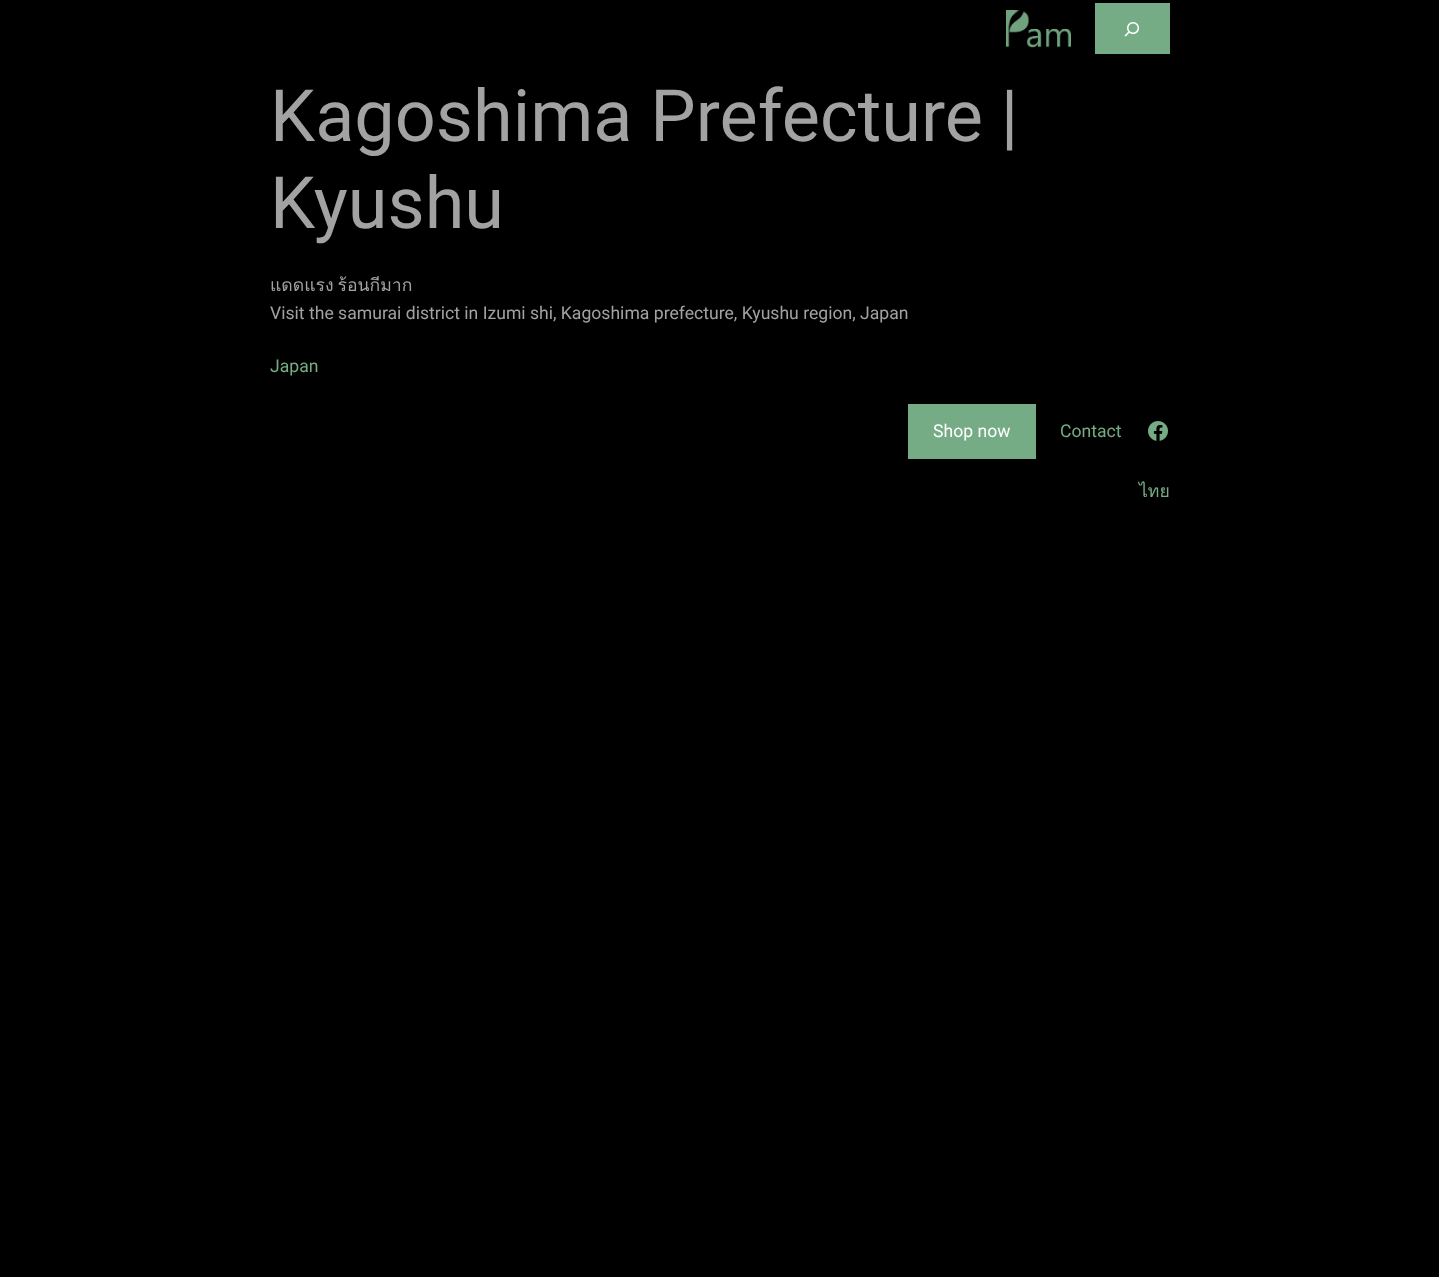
async function draw(canvas) {
  canvas.width = 1439;
  canvas.height = 1277;
  const ctx = canvas.getContext('2d');
  ctx.miterLimit = 4;
  ctx.fontKerning = 'normal';
  function label(s, x, y, font, color) {
    ctx.font = font;
    ctx.fillStyle = color;
    ctx.fillText(s, x, y);
  }
  function rect(x, y, w, h, color) {
    ctx.fillStyle = color;
    ctx.fillRect(x, y, w, h);
  }
  async function image(src, x, y, w, h) {
    const img = new Image();
    img.src = src;
    await img.decode();
    ctx.drawImage(img, x, y, w, h);
  }

  rect(0, 0, 1439, 1277, '#000');
  await image('assets/img1.png', 1006, 9, 65, 39);
  rect(1095, 3, 75, 51, '#76ac85');
  await image('assets/img2.png', 1124, 22, 16, 15);
  label('Kagoshima Prefecture |', 270, 141, '72px Roboto', '#a2a2a2');
  label('Kyushu', 270, 228, '72px Roboto', '#a2a2a2');
  ctx.wordSpacing = '-2px';
  label('แดดแรง ร้อนกีมาก', 270, 291, '17.6px Loma', '#a2a2a2');
  ctx.wordSpacing = '0px';
  label('Visit the samurai district in Izumi shi, Kagoshima prefecture, Kyushu region, Japan', 270, 319, '17.6px Roboto', '#a2a2a2');
  label('Japan', 270, 372, '17.6px Roboto', '#76ac85');
  rect(908, 404, 128, 55, '#76ac85');
  label('Shop now', 933, 437, '17.6px Roboto', '#fff');
  label('Contact', 1060, 437, '17.6px Roboto', '#76ac85');
  await image('assets/img3.png', 1148, 421, 20, 20);
  label('ไทย', 1139, 497, '17.6px Loma', '#76ac85');
}

draw(document.querySelector('canvas'));
